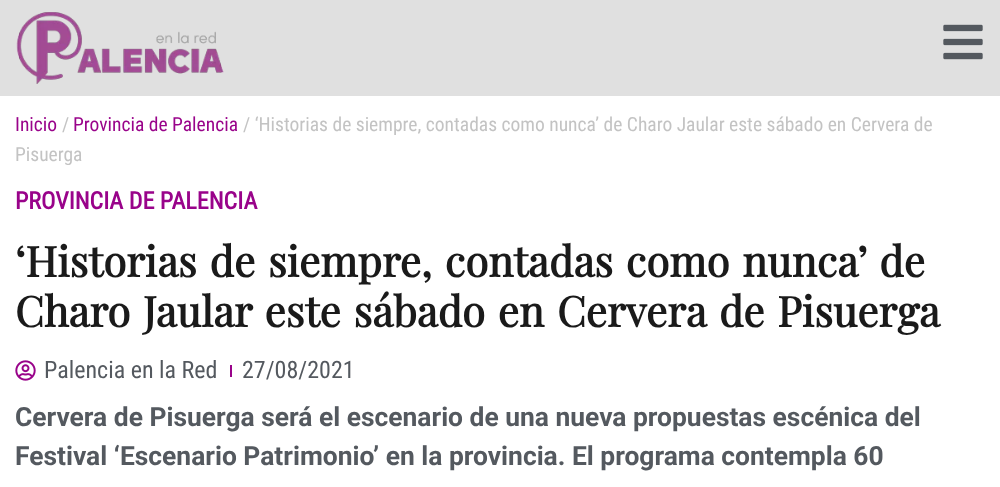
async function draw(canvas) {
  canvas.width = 1000;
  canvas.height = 487;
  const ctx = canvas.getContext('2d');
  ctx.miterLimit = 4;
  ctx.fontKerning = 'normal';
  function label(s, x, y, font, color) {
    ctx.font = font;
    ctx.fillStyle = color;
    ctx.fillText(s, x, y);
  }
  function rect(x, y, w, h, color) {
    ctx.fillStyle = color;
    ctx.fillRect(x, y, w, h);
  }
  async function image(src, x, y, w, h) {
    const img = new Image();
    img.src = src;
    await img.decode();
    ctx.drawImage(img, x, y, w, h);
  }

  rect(0, 0, 1000, 487, '#fff');
  rect(0, 0, 1000, 96, '#e0e0e0');
  await image('assets/img1.png', 16, 12, 208, 72);
  await image('assets/img2.png', 943, 24, 40, 36);
  label('Inicio', 15, 131, '19.5px Roboto Condensed', '#99038a');
  label('/', 62, 131, '19.5px Roboto Condensed', '#c3c3c3');
  label('Provincia de Palencia', 73, 131, '19.5px Roboto Condensed', '#99038a');
  label('/ ‘Historias de siempre, contadas como nunca’ de Charo Jaular este sábado en Cervera de', 243, 131, '19.5px Roboto Condensed', '#c3c3c3');
  label('Pisuerga', 15, 161, '19.5px Roboto Condensed', '#c3c3c3');
  label('PROVINCIA DE PALENCIA', 15, 209, 'bold 24px Roboto Condensed', '#99038a');
  ctx.wordSpacing = '2.25px';
  label('‘Historias de siempre, contadas como nunca’ de', 15, 277, 'bold 42px Playfair Display', '#1a1a1a');
  label('Charo Jaular este sábado en Cervera de Pisuerga', 15, 327, 'bold 42px Playfair Display', '#1a1a1a');
  await image('assets/img3.png', 15, 360, 21, 21);
  ctx.wordSpacing = '0px';
  label('Palencia en la Red', 44, 378, '24px Roboto Condensed', '#54595f');
  rect(230, 365, 2, 12, '#99038a');
  label('27/08/2021', 242, 378, '24px Roboto Condensed', '#54595f');
  label('Cervera de Pisuerga será el escenario de una nueva propuestas escénica del', 15, 426, 'bold 26.4px Roboto', '#54595f');
  label('Festival ‘Escenario Patrimonio’ en la provincia. El programa contempla 60', 15, 465, 'bold 26.4px Roboto', '#54595f');
}

draw(document.querySelector('canvas'));
